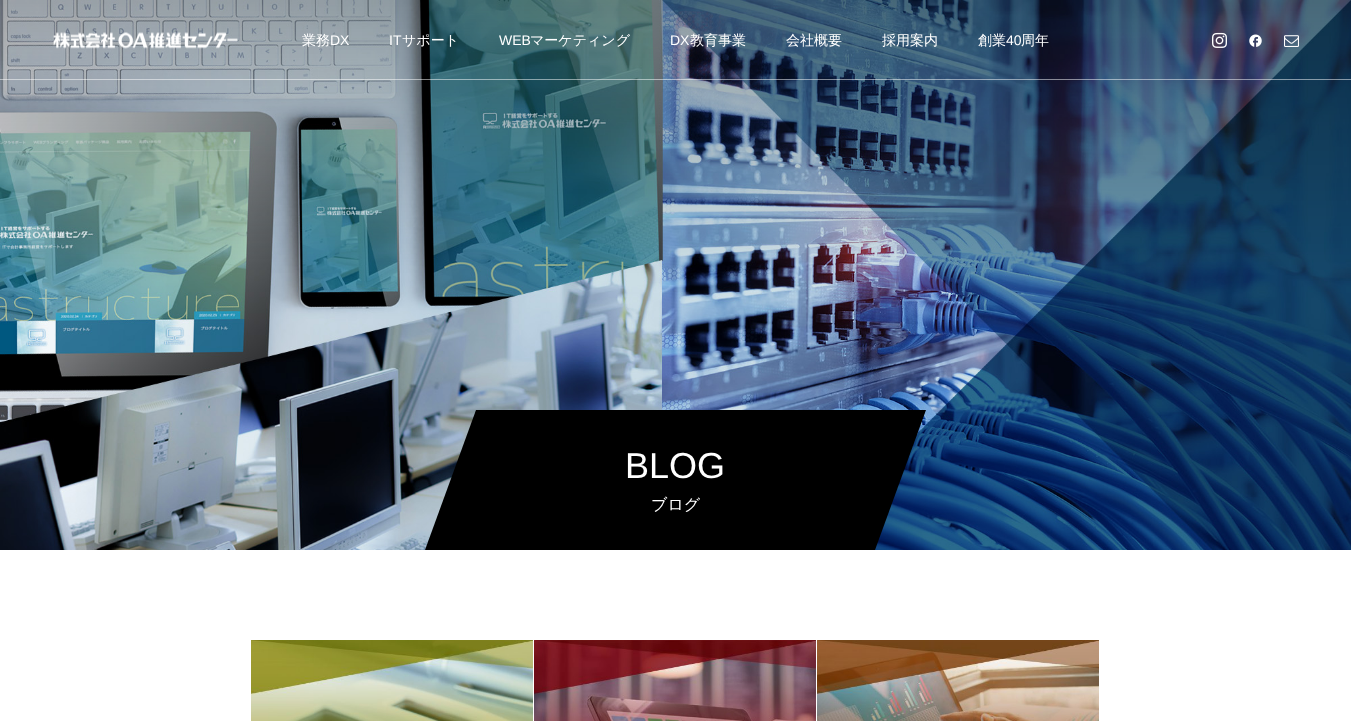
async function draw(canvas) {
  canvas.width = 1351;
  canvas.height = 721;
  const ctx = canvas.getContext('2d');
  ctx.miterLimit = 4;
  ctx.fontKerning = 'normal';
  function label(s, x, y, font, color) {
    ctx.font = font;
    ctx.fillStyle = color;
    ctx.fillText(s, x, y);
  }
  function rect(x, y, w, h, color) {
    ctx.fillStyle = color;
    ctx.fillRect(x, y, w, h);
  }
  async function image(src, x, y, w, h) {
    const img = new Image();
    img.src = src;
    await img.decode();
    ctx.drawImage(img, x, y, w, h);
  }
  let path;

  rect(0, 0, 1351, 721, '#fff');
  await image('assets/img5.png', 0, 0, 1351, 550);
  rect(0, 79, 1351, 1, '#ffffff80');
  await image('assets/img1.png', 53, 32, 185, 17);
  label('業務', 302, 45, '500 14px WenQuanYi Zen Hei', '#fff');
  label('DX', 330, 45, '14px Liberation Sans', '#fff');
  label('IT', 389, 45, '14px Liberation Sans', '#fff');
  label('サポート', 402, 45, '500 14px WenQuanYi Zen Hei', '#fff');
  label('WEB', 499, 45, '14px Liberation Sans', '#fff');
  label('マーケティング', 530, 45, '500 14px WenQuanYi Zen Hei', '#fff');
  label('DX', 670, 45, '14px Liberation Sans', '#fff');
  label('教育事業', 690, 45, '500 14px WenQuanYi Zen Hei', '#fff');
  label('会社概要', 786, 45, '500 14px WenQuanYi Zen Hei', '#fff');
  label('採用案内', 882, 45, '500 14px WenQuanYi Zen Hei', '#fff');
  label('創業', 978, 45, '500 14px WenQuanYi Zen Hei', '#fff');
  label('40', 1006, 45, '14px Liberation Sans', '#fff');
  label('周年', 1021, 45, '500 14px WenQuanYi Zen Hei', '#fff');
  await image('assets/img2.png', 1212, 32, 15, 16);
  await image('assets/img3.png', 1249, 34, 13, 13);
  await image('assets/img4.png', 1284, 35, 15, 12);
  ctx.fillStyle = '#000';
  path = new Path2D('M476 410H926L875 550H425Z');
  ctx.fill(path);
  label('BLOG', 625, 478, '36px Liberation Sans', '#fff');
  label('ブログ', 651, 510, '500 16px WenQuanYi Zen Hei', '#fff');
  await image('assets/img6.png', 251, 640, 282, 81);
  await image('assets/img7.png', 534, 640, 282, 81);
  await image('assets/img8.png', 817, 640, 282, 81);
}

draw(document.querySelector('canvas'));
